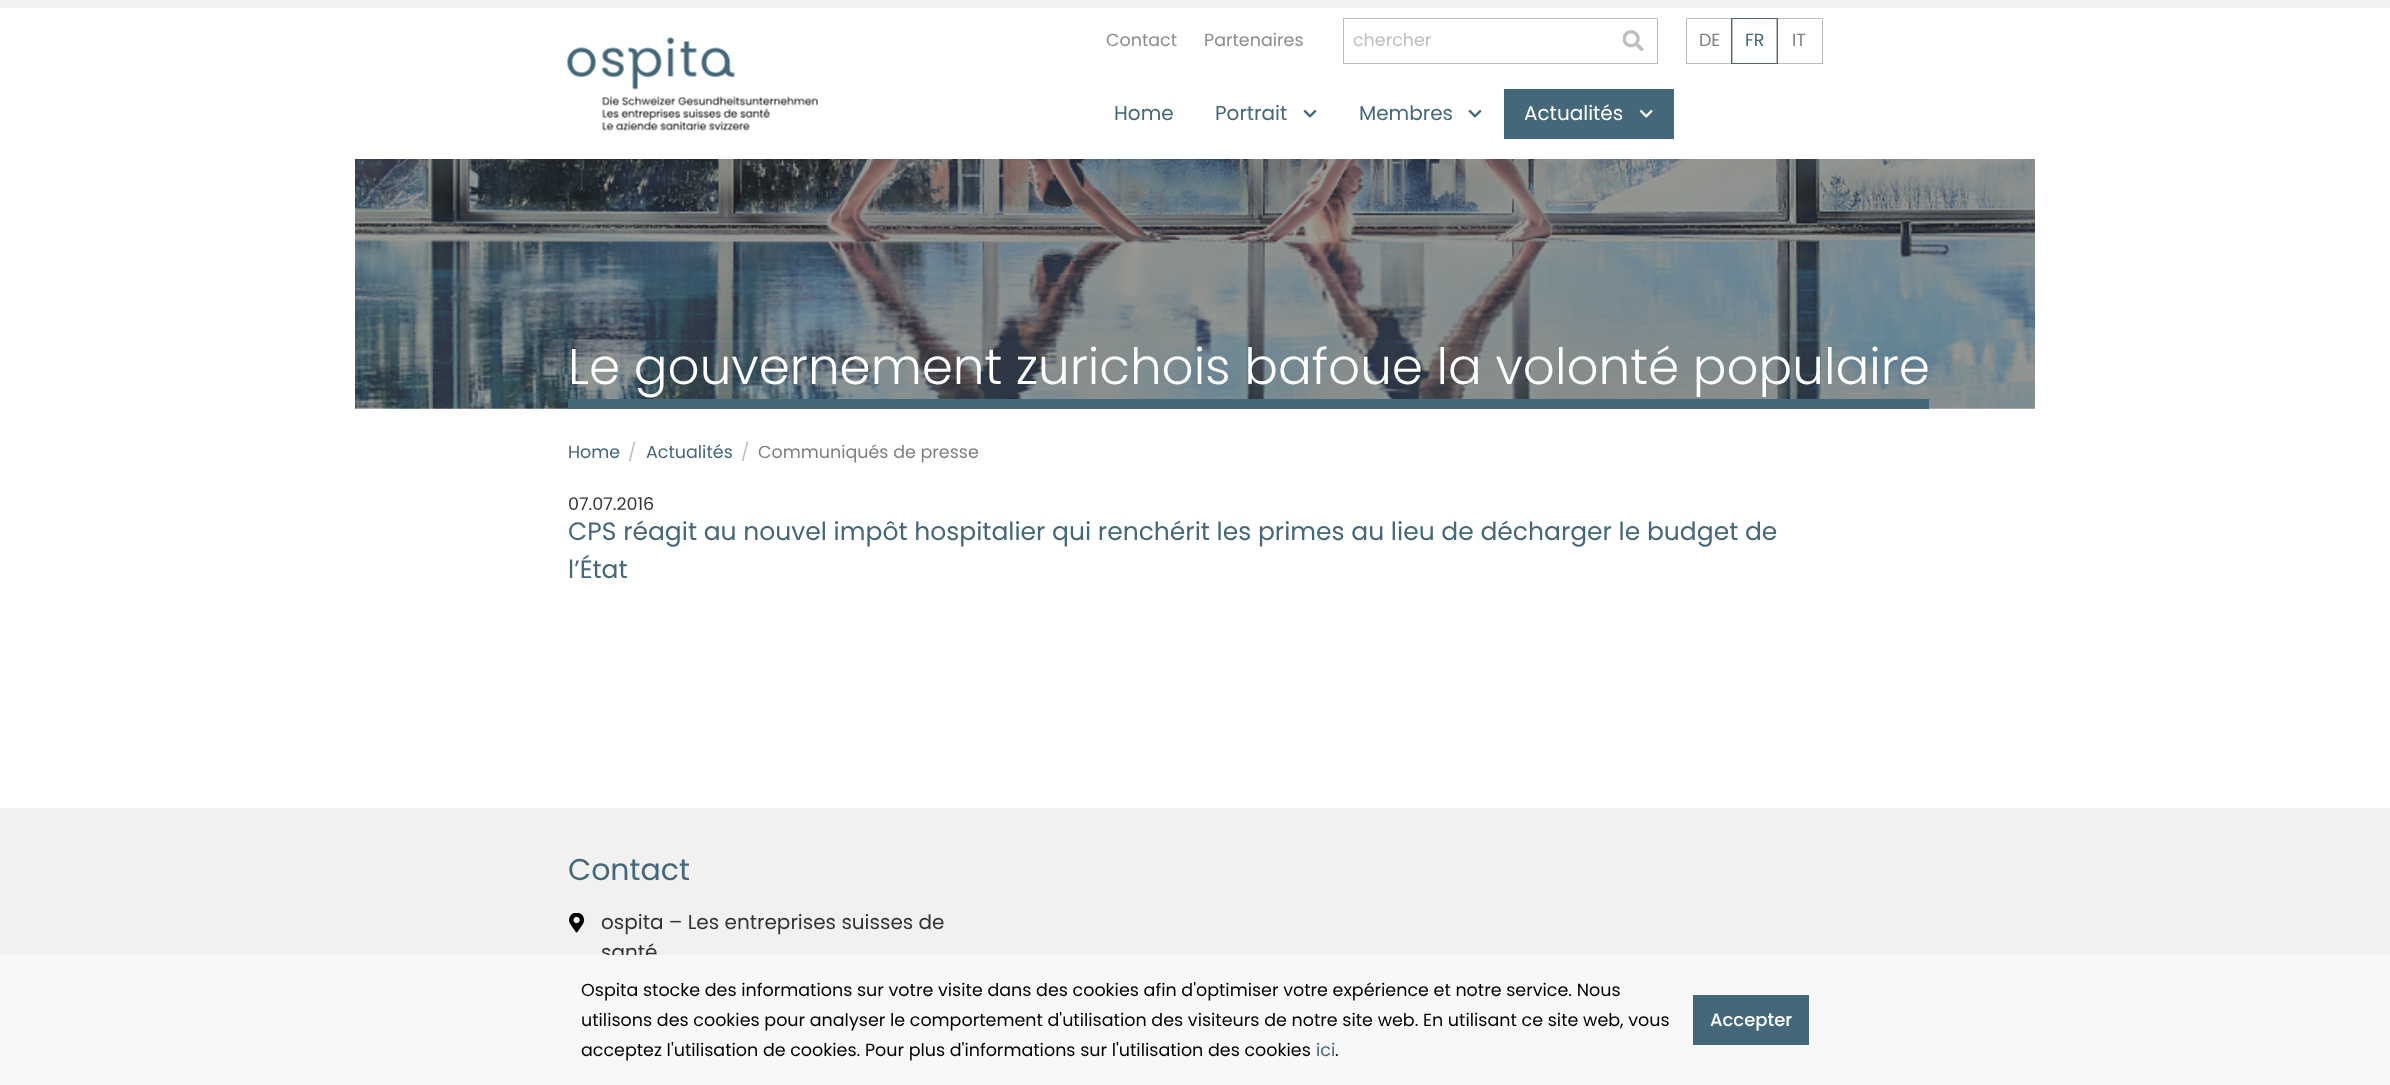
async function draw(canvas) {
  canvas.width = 2390;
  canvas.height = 1085;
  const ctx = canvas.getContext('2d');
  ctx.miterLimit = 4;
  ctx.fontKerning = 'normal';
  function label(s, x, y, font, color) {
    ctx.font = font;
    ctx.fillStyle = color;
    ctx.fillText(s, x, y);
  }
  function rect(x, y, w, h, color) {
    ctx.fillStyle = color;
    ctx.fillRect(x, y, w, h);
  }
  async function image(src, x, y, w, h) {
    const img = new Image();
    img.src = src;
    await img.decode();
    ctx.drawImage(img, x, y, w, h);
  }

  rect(0, 0, 2390, 1085, '#fff');
  rect(0, 0, 2390, 8, '#f1f1f1');
  await image('assets/img1.png', 567, 37, 251, 94);
  label('Contact', 1106, 46, '17.5px Poppins', '#8c8c8c');
  label('Partenaires', 1204, 46, '17.5px Poppins', '#8c8c8c');
  ctx.strokeStyle = '#bfbebe';
  ctx.strokeRect(1343.5, 18.5, 314, 45);
  label('chercher', 1353, 46, '17.5px Poppins', '#bfbebe');
  await image('assets/img2.png', 1623, 30, 21, 21);
  ctx.strokeRect(1686.5, 18.5, 46, 45);
  label('DE', 1699, 46, '17.5px Poppins', '#808080');
  ctx.strokeRect(1776.5, 18.5, 46, 45);
  ctx.strokeStyle = '#446779';
  ctx.strokeRect(1731.5, 18.5, 46, 45);
  label('FR', 1745, 46, '17.5px Poppins', '#446779');
  label('IT', 1792, 46, '17.5px Poppins', '#808080');
  label('Home', 1114, 120, '20px Poppins', '#446779');
  label('Portrait', 1215, 120, '20px Poppins', '#446779');
  await image('assets/img3.png', 1303, 109, 14, 9);
  label('Membres', 1359, 120, '20px Poppins', '#446779');
  await image('assets/img3.png', 1468, 109, 14, 9);
  rect(1504, 89, 170, 50, '#446779');
  label('Actualités', 1524, 120, '20px Poppins', '#fff');
  await image('assets/img4.png', 1639, 109, 14, 9);
  await image('assets/img5.png', 355, 159, 1680, 250);
  rect(568, 399, 1361, 10, '#446779');
  label('Le gouvernement zurichois bafoue la volonté populaire', 568, 384, '300 50px Poppins', '#fff');
  label('Home', 568, 458, '17.5px Poppins', '#446779');
  label('/', 628, 458, '17.5px Poppins', '#bfbebe');
  label('Actualités', 646, 458, '17.5px Poppins', '#446779');
  label('/', 741, 458, '17.5px Poppins', '#bfbebe');
  label('Communiqués de presse', 758, 458, '17.5px Poppins', '#808080');
  label('07.07.2016', 568, 510, '17.5px Poppins', '#333');
  label('CPS réagit au nouvel impôt hospitalier qui renchérit les primes au lieu de décharger le budget de', 568, 540, '25px Poppins', '#446779');
  label('l’État', 568, 578, '25px Poppins', '#446779');
  rect(0, 808, 2390, 147, '#f1f1f1');
  label('Contact', 568, 880, '30px Poppins', '#446779');
  await image('assets/img6.png', 569, 913, 16, 20);
  label('ospita – Les entreprises suisses de', 601, 929, '20px Poppins', '#333');
  label('santé', 601, 959, '20px Poppins', '#333');
  rect(0, 955, 2390, 130, '#f8f8f8');
  label('Ospita stocke des informations sur votre visite dans des cookies afin d\'optimiser votre expérience et notre service. Nous', 581, 996, '17.5px Poppins', '#000');
  label('utilisons des cookies pour analyser le comportement d\'utilisation des visiteurs de notre site web. En utilisant ce site web, vous', 581, 1026, '17.5px Poppins', '#000');
  label('acceptez l\'utilisation de cookies. Pour plus d\'informations sur l\'utilisation des cookies', 581, 1056, '17.5px Poppins', '#000');
  label('ici', 1316, 1056, '17.5px Poppins', '#446779');
  label('.', 1335, 1056, '17.5px Poppins', '#000');
  rect(1693, 995, 116, 50, '#446779');
  label('Accepter', 1710, 1026, '500 18px Poppins', '#fff');
}

draw(document.querySelector('canvas'));
